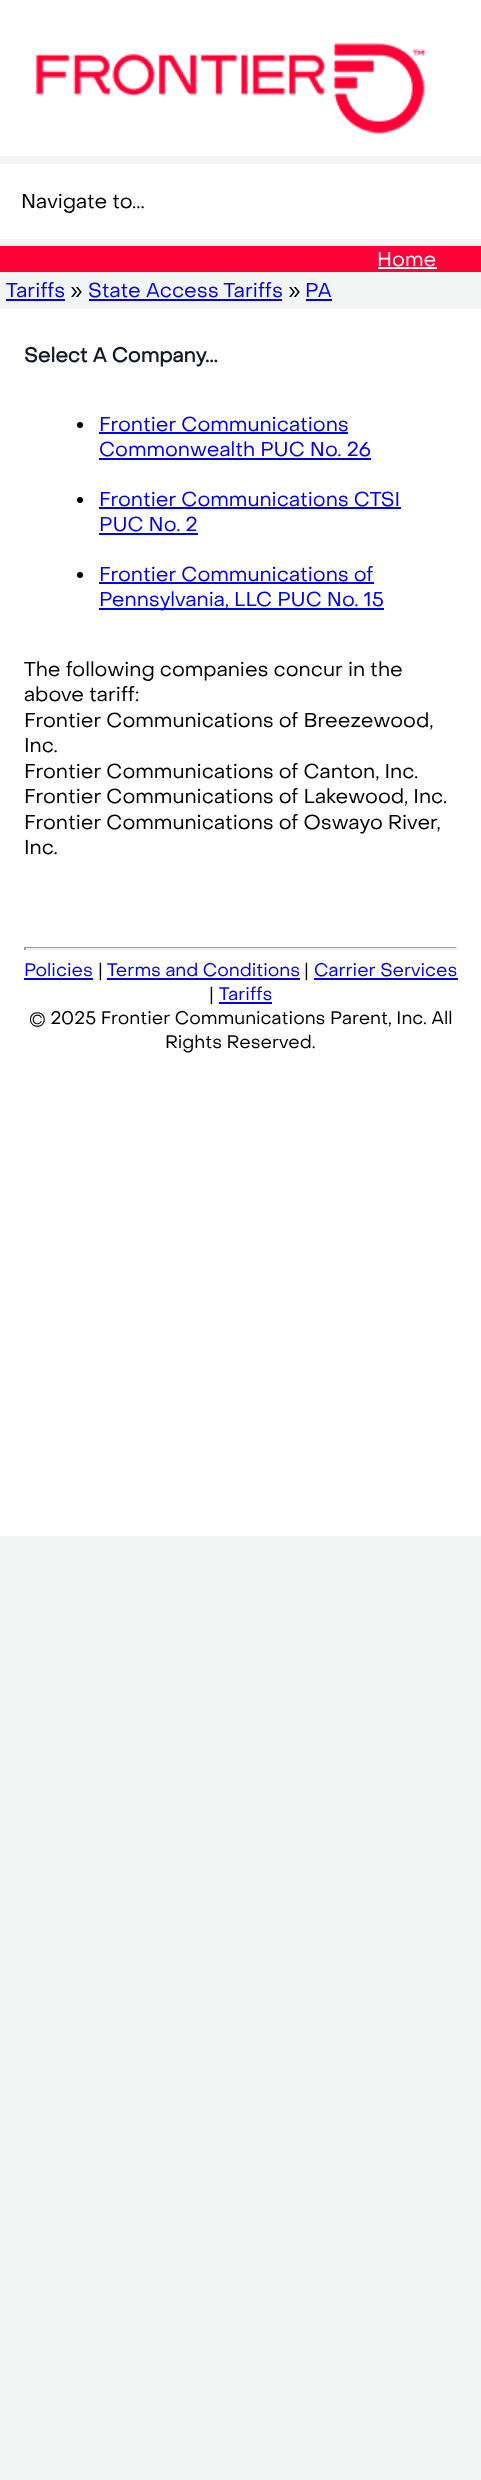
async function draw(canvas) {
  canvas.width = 481;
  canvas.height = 2480;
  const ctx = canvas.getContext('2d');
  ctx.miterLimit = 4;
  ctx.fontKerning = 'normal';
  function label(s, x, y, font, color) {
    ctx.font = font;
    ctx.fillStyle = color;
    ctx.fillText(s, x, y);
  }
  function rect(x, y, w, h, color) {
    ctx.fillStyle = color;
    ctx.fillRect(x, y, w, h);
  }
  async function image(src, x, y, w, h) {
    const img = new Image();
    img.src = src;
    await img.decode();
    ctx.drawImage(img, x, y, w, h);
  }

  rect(0, 0, 481, 2480, '#f3f4f4');
  rect(0, 0, 481, 156, '#fff');
  await image('assets/img1.png', 35, 43, 390, 91);
  rect(0, 164, 481, 75, '#fff');
  label('Navigate to...', 21, 208, '20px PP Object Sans', '#000');
  rect(0, 246, 481, 26, '#ff0037');
  label('Home', 377, 266, '20px PP Object Sans', '#fff');
  rect(378, 267, 59, 2, '#fff');
  label('Tariffs', 6, 297, '20px PP Object Sans', '#00e');
  rect(6, 299, 59, 2, '#00e');
  label('»', 70, 297, '20px PP Object Sans', '#000');
  label('State Access Tariffs', 88, 297, '20px PP Object Sans', '#00e');
  rect(89, 299, 193, 2, '#00e');
  label('»', 288, 297, '20px PP Object Sans', '#000');
  label('PA', 305, 297, '20px PP Object Sans', '#00e');
  rect(306, 299, 26, 2, '#00e');
  rect(0, 309, 481, 1227, '#fff');
  label('Select A Company...', 24, 362, 'bold 20px PP Object Sans', '#141928');
  ctx.fillStyle = '#000';
  ctx.beginPath();
  ctx.arc(80, 425, 3, 0, 2 * Math.PI);
  ctx.fill();
  label('Frontier Communications', 99, 431, '20px PP Object Sans', '#00e');
  rect(99, 432, 249, 2, '#00e');
  label('Commonwealth PUC No. 26', 99, 456, '20px PP Object Sans', '#00e');
  rect(99, 458, 272, 2, '#00e');
  ctx.fillStyle = '#000';
  ctx.beginPath();
  ctx.arc(80, 500, 3, 0, 2 * Math.PI);
  ctx.fill();
  label('Frontier Communications CTSI', 99, 506, '20px PP Object Sans', '#00e');
  rect(99, 507, 302, 2, '#00e');
  label('PUC No. 2', 99, 531, '20px PP Object Sans', '#00e');
  rect(99, 533, 99, 2, '#00e');
  ctx.fillStyle = '#000';
  ctx.beginPath();
  ctx.arc(80, 575, 3, 0, 2 * Math.PI);
  ctx.fill();
  label('Frontier Communications of', 99, 581, '20px PP Object Sans', '#00e');
  rect(99, 582, 275, 2, '#00e');
  rect(99, 608, 285, 2, '#00e');
  label('Pennsylvania, LLC PUC No. 15', 99, 606, '20px PP Object Sans', '#00e');
  label('The following companies concur in the', 24, 676, '20px PP Object Sans', '#000');
  label('above tariff:', 24, 701, '20px PP Object Sans', '#000');
  label('Frontier Communications of Breezewood,', 24, 727, '20px PP Object Sans', '#000');
  label('Inc.', 24, 752, '20px PP Object Sans', '#000');
  label('Frontier Communications of Canton, Inc.', 24, 778, '20px PP Object Sans', '#000');
  label('Frontier Communications of Lakewood, Inc.', 24, 803, '20px PP Object Sans', '#000');
  label('Frontier Communications of Oswayo River,', 24, 829, '20px PP Object Sans', '#000');
  label('Inc.', 24, 854, '20px PP Object Sans', '#000');
  rect(24, 947, 434, 1, '#9f9f9f');
  rect(456, 947, 2, 3, '#eee');
  rect(24, 948, 434, 2, '#eee');
  rect(24, 947, 2, 3, '#9f9f9f');
  label('Policies', 24, 976, '18px PP Object Sans', '#00e');
  rect(24, 978, 69, 2, '#00e');
  label('|', 98, 976, '18px PP Object Sans', '#000');
  label('Terms and Conditions', 107, 976, '18px PP Object Sans', '#00e');
  rect(107, 978, 193, 2, '#00e');
  label('|', 304, 976, '18px PP Object Sans', '#000');
  label('Carrier Services', 314, 976, '18px PP Object Sans', '#00e');
  rect(314, 978, 144, 2, '#00e');
  label('|', 209, 1000, '18px PP Object Sans', '#000');
  label('Tariffs', 219, 1000, '18px PP Object Sans', '#00e');
  rect(219, 1002, 53, 2, '#00e');
  label('© 2025 Frontier Communications Parent, Inc. All', 29, 1024, '18px PP Object Sans', '#000');
  label('Rights Reserved.', 165, 1048, '18px PP Object Sans', '#000');
}

draw(document.querySelector('canvas'));
